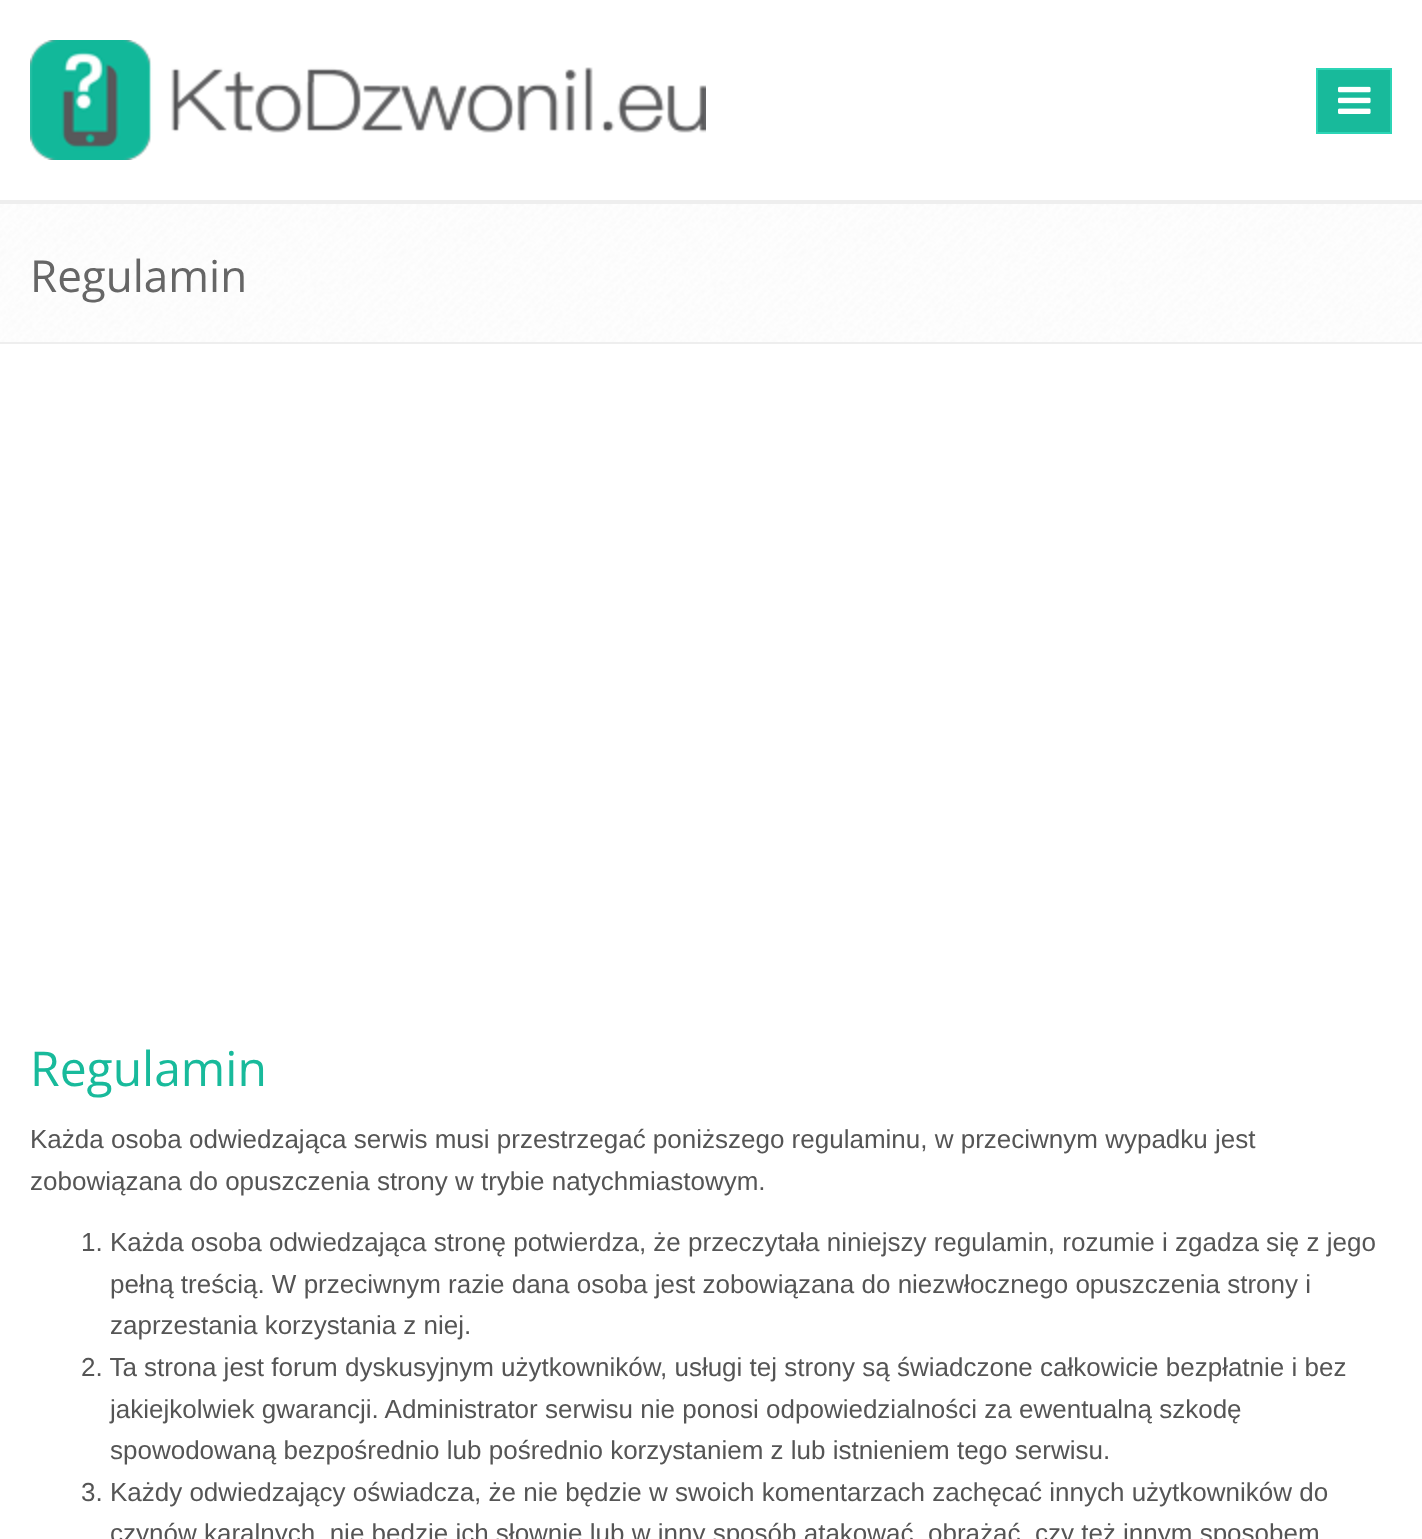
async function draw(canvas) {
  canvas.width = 1422;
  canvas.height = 1539;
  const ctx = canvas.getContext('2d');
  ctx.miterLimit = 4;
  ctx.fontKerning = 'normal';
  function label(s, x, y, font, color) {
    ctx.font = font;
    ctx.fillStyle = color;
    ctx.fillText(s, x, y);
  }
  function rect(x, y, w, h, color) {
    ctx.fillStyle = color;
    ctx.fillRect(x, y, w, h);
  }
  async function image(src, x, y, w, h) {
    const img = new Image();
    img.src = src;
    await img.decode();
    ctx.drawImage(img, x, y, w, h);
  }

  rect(0, 0, 1422, 1539, '#fff');
  rect(0, 200, 1422, 4, '#eee');
  await image('assets/img1.png', 30, 40, 676, 120);
  ctx.fillStyle = '#18ba9b';
  ctx.beginPath();
  ctx.rect(1317, 69, 74, 64);
  ctx.fill();
  ctx.strokeStyle = '#2cd5b6';
  ctx.lineWidth = 2;
  ctx.stroke();
  await image('assets/img2.png', 1338, 86, 33, 28);
  await image('assets/img3.png', 0, 204, 1422, 138);
  rect(0, 342, 1422, 2, '#eee');
  label('Regulamin', 30, 292, '44px Open Sans', '#666');
  label('Regulamin', 30, 1086, '48px Open Sans', '#18ba9b');
  label('Każda osoba odwiedzająca serwis musi przestrzegać poniższego regulaminu, w przeciwnym wypadku jest', 30, 1148, '26px Liberation Sans', '#555');
  label('zobowiązana do opuszczenia strony w trybie natychmiastowym.', 30, 1190, '26px Liberation Sans', '#555');
  label('1. Każda osoba odwiedzająca stronę potwierdza, że przeczytała niniejszy regulamin, rozumie i zgadza się z jego', 81, 1251, '26px Liberation Sans', '#555');
  label('pełną treścią. W przeciwnym razie dana osoba jest zobowiązana do niezwłocznego opuszczenia strony i', 110, 1293, '26px Liberation Sans', '#555');
  label('zaprzestania korzystania z niej.', 110, 1334, '26px Liberation Sans', '#555');
  label('2. Ta strona jest forum dyskusyjnym użytkowników, usługi tej strony są świadczone całkowicie bezpłatnie i bez', 81, 1376, '26px Liberation Sans', '#555');
  label('jakiejkolwiek gwarancji. Administrator serwisu nie ponosi odpowiedzialności za ewentualną szkodę', 110, 1418, '26px Liberation Sans', '#555');
  label('spowodowaną bezpośrednio lub pośrednio korzystaniem z lub istnieniem tego serwisu.', 110, 1459, '26px Liberation Sans', '#555');
  label('3. Każdy odwiedzający oświadcza, że nie będzie w swoich komentarzach zachęcać innych użytkowników do', 81, 1501, '26px Liberation Sans', '#555');
  label('czynów karalnych, nie będzie ich słownie lub w inny sposób atakować, obrażać, czy też innym sposobem', 110, 1542, '26px Liberation Sans', '#555');
}

draw(document.querySelector('canvas'));
